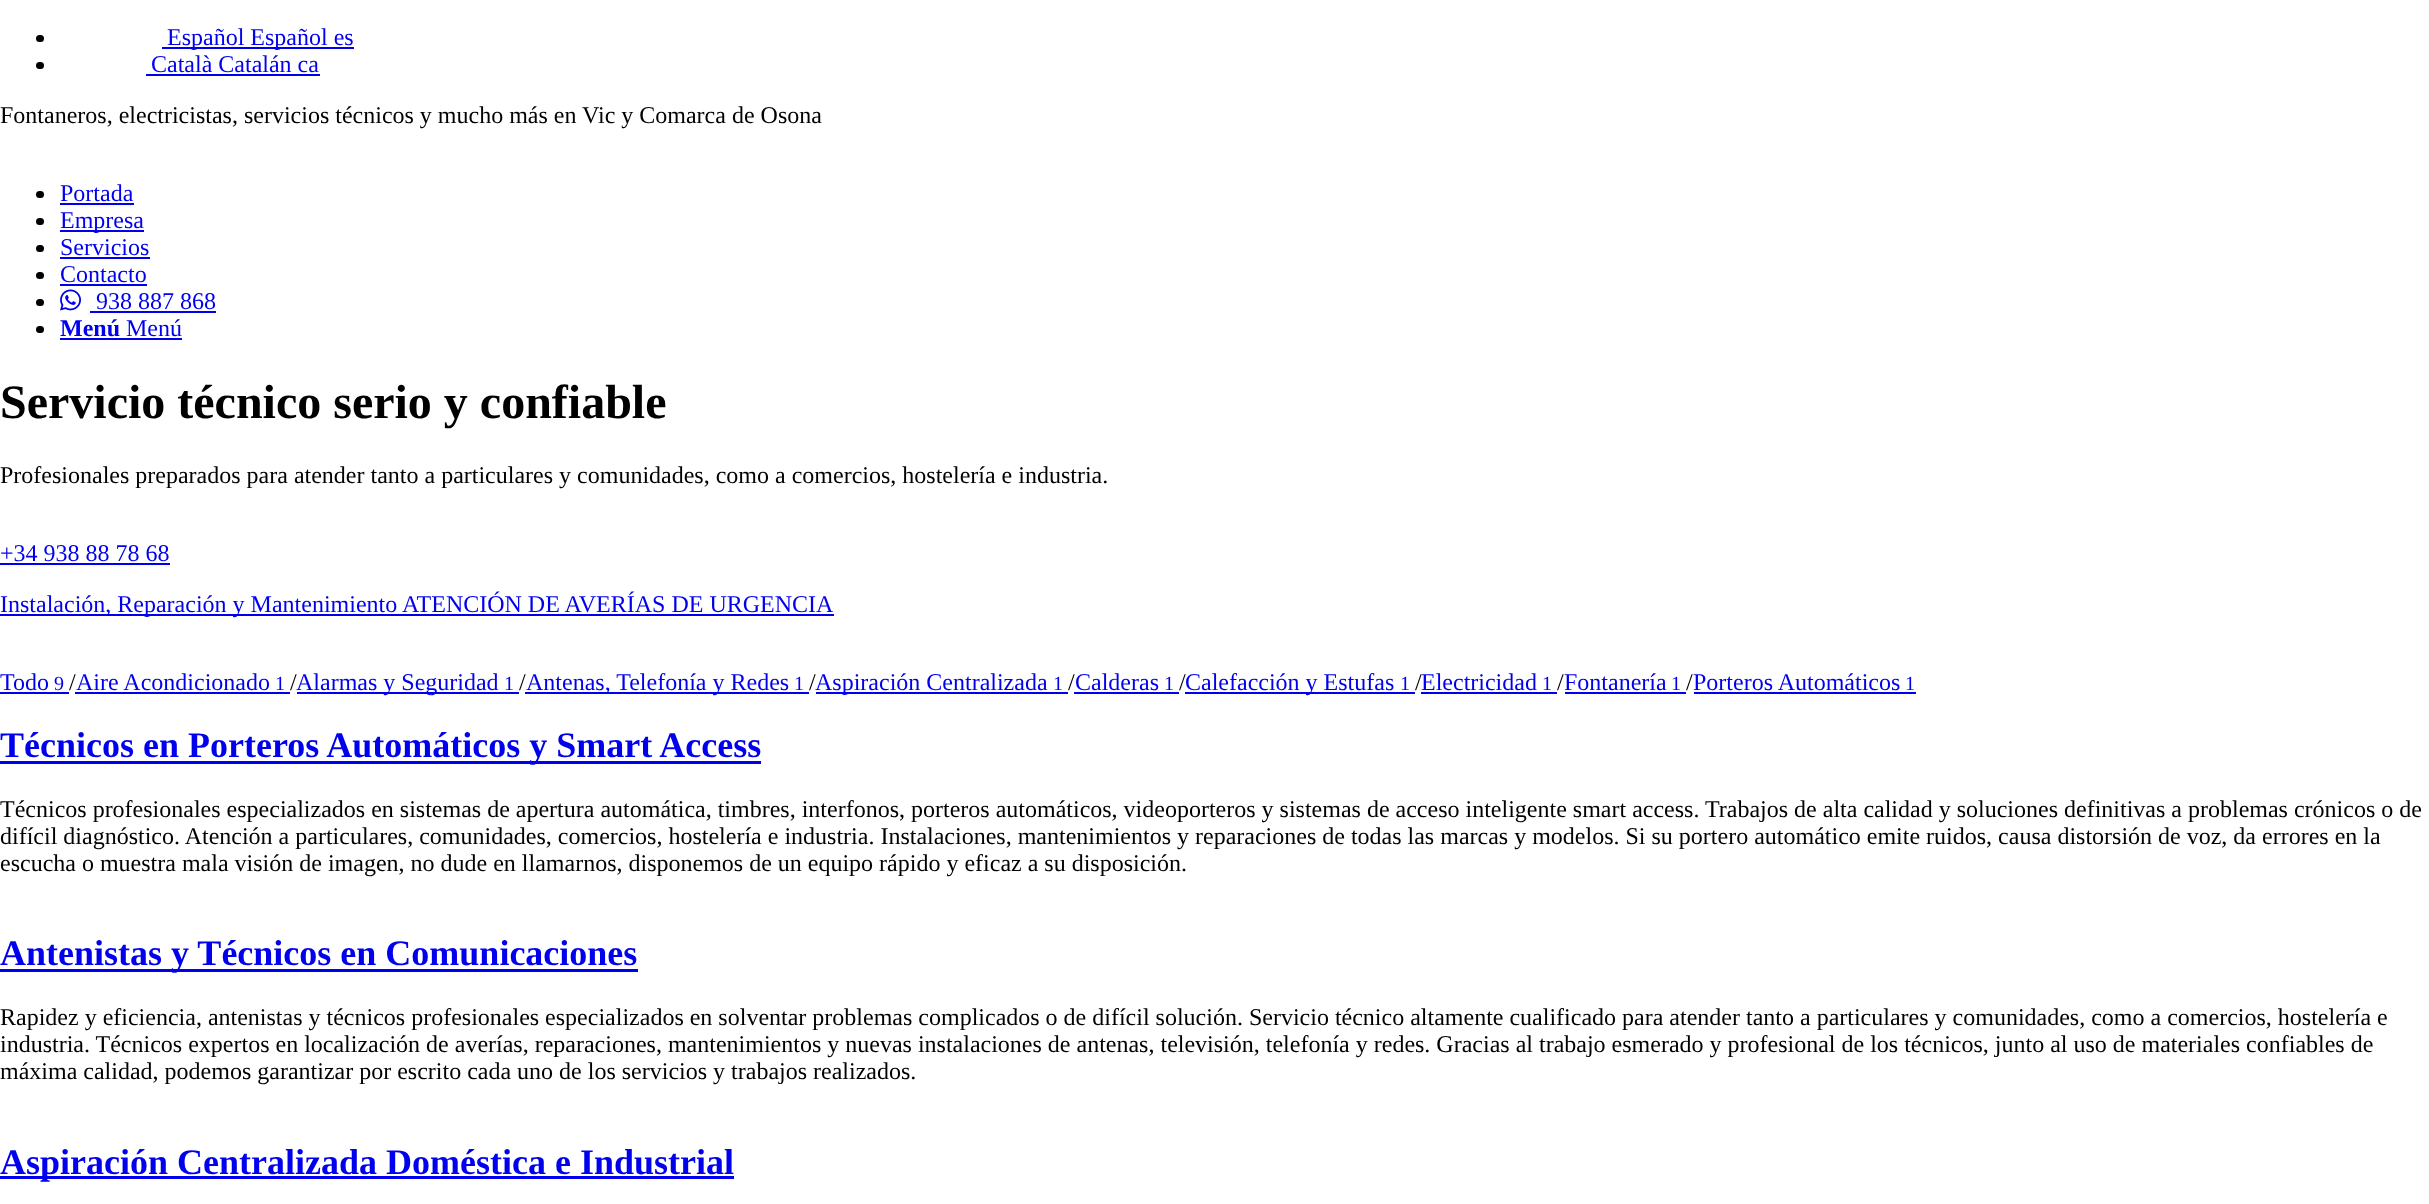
async function draw(canvas) {
  canvas.width = 2429;
  canvas.height = 1204;
  const ctx = canvas.getContext('2d');
  ctx.miterLimit = 4;
  ctx.fontKerning = 'normal';
  function label(s, x, y, font, color) {
    ctx.font = font;
    ctx.fillStyle = color;
    ctx.fillText(s, x, y);
  }
  function rect(x, y, w, h, color) {
    ctx.fillStyle = color;
    ctx.fillRect(x, y, w, h);
  }
  function roundedRect(x, y, w, h, r, color) {
    ctx.fillStyle = color;
    ctx.beginPath();
    ctx.roundRect(x, y, w, h, r);
    ctx.fill();
  }
  async function image(src, x, y, w, h) {
    const img = new Image();
    img.src = src;
    await img.decode();
    ctx.drawImage(img, x, y, w, h);
  }

  rect(0, 0, 2429, 1204, '#fff');
  roundedRect(36, 35, 8, 7, 3.5, '#000');
  rect(162, 47, 192, 2, '#00e');
  label('Español Español es', 167, 45, '24px Liberation Serif', '#00e');
  roundedRect(36, 62, 8, 7, 3.5, '#000');
  label('Català Catalán ca', 151, 72, '24px Liberation Serif', '#00e');
  rect(146, 74, 174, 2, '#00e');
  label('Fontaneros, electricistas, servicios técnicos y mucho más en Vic y Comarca de Osona', 0, 123, '24px Liberation Serif', '#000');
  roundedRect(36, 191, 8, 7, 3.5, '#000');
  label('Portada', 60, 201, '24px Liberation Serif', '#00e');
  rect(60, 203, 74, 2, '#00e');
  roundedRect(36, 218, 8, 7, 3.5, '#000');
  rect(60, 230, 84, 2, '#00e');
  label('Empresa', 60, 228, '24px Liberation Serif', '#00e');
  roundedRect(36, 245, 8, 7, 3.5, '#000');
  label('Servicios', 60, 255, '24px Liberation Serif', '#00e');
  rect(60, 257, 90, 2, '#00e');
  roundedRect(36, 272, 8, 7, 3.5, '#000');
  label('Contacto', 60, 282, '24px Liberation Serif', '#00e');
  rect(60, 284, 87, 2, '#00e');
  roundedRect(36, 299, 8, 7, 3.5, '#000');
  await image('assets/img1.png', 60, 289, 21, 22);
  label('938 887 868', 96, 309, '24px Liberation Serif', '#00e');
  rect(90, 311, 126, 2, '#00e');
  roundedRect(36, 326, 8, 7, 3.5, '#000');
  label('Menú', 60, 336, 'bold 24px Liberation Serif', '#00e');
  rect(60, 338, 122, 2, '#00e');
  label('Menú', 126, 336, '24px Liberation Serif', '#00e');
  label('Servicio técnico serio y confiable', 0, 418, 'bold 48px Liberation Serif', '#000');
  label('Profesionales preparados para atender tanto a particulares y comunidades, como a comercios, hostelería e industria.', 0, 483, '24px Liberation Serif', '#000');
  label('+34 938 88 78 68', 0, 561, '24px Liberation Serif', '#00e');
  rect(0, 563, 170, 2, '#00e');
  rect(0, 614, 834, 2, '#00e');
  label('Instalación, Reparación y Mantenimiento ATENCIÓN DE AVERÍAS DE URGENCIA', 0, 612, '24px Liberation Serif', '#00e');
  label('Todo', 0, 690, '24px Liberation Serif', '#00e');
  label('9', 54, 690, '20px Liberation Serif', '#00e');
  rect(0, 692, 69, 2, '#00e');
  label('/', 69, 690, '24px Liberation Serif', '#000');
  label('Aire Acondicionado', 76, 690, '24px Liberation Serif', '#00e');
  label('1', 275, 690, '20px Liberation Serif', '#00e');
  rect(75, 692, 215, 2, '#00e');
  label('/', 290, 690, '24px Liberation Serif', '#000');
  rect(297, 692, 222, 2, '#00e');
  label('Alarmas y Seguridad', 296, 690, '24px Liberation Serif', '#00e');
  label('1', 504, 690, '20px Liberation Serif', '#00e');
  label('/', 519, 690, '24px Liberation Serif', '#000');
  rect(525, 692, 284, 2, '#00e');
  label('Antenas, Telefonía y Redes', 526, 690, '24px Liberation Serif', '#00e');
  label('1', 794, 690, '20px Liberation Serif', '#00e');
  label('/', 809, 690, '24px Liberation Serif', '#000');
  rect(816, 692, 252, 2, '#00e');
  label('Aspiración Centralizada', 815, 690, '24px Liberation Serif', '#00e');
  label('1', 1053, 690, '20px Liberation Serif', '#00e');
  label('/', 1068, 690, '24px Liberation Serif', '#000');
  label('Calderas', 1075, 690, '24px Liberation Serif', '#00e');
  label('1', 1164, 690, '20px Liberation Serif', '#00e');
  rect(1074, 692, 105, 2, '#00e');
  label('/', 1179, 690, '24px Liberation Serif', '#000');
  rect(1185, 692, 230, 2, '#00e');
  label('Calefacción y Estufas', 1185, 690, '24px Liberation Serif', '#00e');
  label('1', 1400, 690, '20px Liberation Serif', '#00e');
  label('/', 1415, 690, '24px Liberation Serif', '#000');
  label('Electricidad', 1421, 690, '24px Liberation Serif', '#00e');
  label('1', 1542, 690, '20px Liberation Serif', '#00e');
  rect(1421, 692, 136, 2, '#00e');
  label('/', 1557, 690, '24px Liberation Serif', '#000');
  label('Fontanería', 1564, 690, '24px Liberation Serif', '#00e');
  label('1', 1671, 690, '20px Liberation Serif', '#00e');
  rect(1565, 692, 121, 2, '#00e');
  label('/', 1686, 690, '24px Liberation Serif', '#000');
  label('Porteros Automáticos', 1693, 690, '24px Liberation Serif', '#00e');
  label('1', 1905, 690, '20px Liberation Serif', '#00e');
  rect(1694, 692, 222, 2, '#00e');
  rect(0, 761, 761, 3, '#00e');
  label('Técnicos en Porteros Automáticos y Smart Access', 0, 757, 'bold 36px Liberation Serif', '#00e');
  label('Técnicos profesionales especializados en sistemas de apertura automática, timbres, interfonos, porteros automáticos, videoporteros y sistemas de acceso inteligente smart access. Trabajos de alta calidad y soluciones definitivas a problemas crónicos o de', 0, 817, '24px Liberation Serif', '#000');
  label('difícil diagnóstico. Atención a particulares, comunidades, comercios, hostelería e industria. Instalaciones, mantenimientos y reparaciones de todas las marcas y modelos. Si su portero automático emite ruidos, causa distorsión de voz, da errores en la', 0, 844, '24px Liberation Serif', '#000');
  label('escucha o muestra mala visión de imagen, no dude en llamarnos, disponemos de un equipo rápido y eficaz a su disposición.', 0, 871, '24px Liberation Serif', '#000');
  rect(0, 969, 638, 3, '#00e');
  label('Antenistas y Técnicos en Comunicaciones', 0, 965, 'bold 36px Liberation Serif', '#00e');
  label('Rapidez y eficiencia, antenistas y técnicos profesionales especializados en solventar problemas complicados o de difícil solución. Servicio técnico altamente cualificado para atender tanto a particulares y comunidades, como a comercios, hostelería e', 0, 1025, '24px Liberation Serif', '#000');
  label('industria. Técnicos expertos en localización de averías, reparaciones, mantenimientos y nuevas instalaciones de antenas, televisión, telefonía y redes. Gracias al trabajo esmerado y profesional de los técnicos, junto al uso de materiales confiables de', 0, 1052, '24px Liberation Serif', '#000');
  label('máxima calidad, podemos garantizar por escrito cada uno de los servicios y trabajos realizados.', 0, 1079, '24px Liberation Serif', '#000');
  rect(0, 1176, 734, 3, '#00e');
  label('Aspiración Centralizada Doméstica e Industrial', 0, 1174, 'bold 36px Liberation Serif', '#00e');
}

draw(document.querySelector('canvas'));
